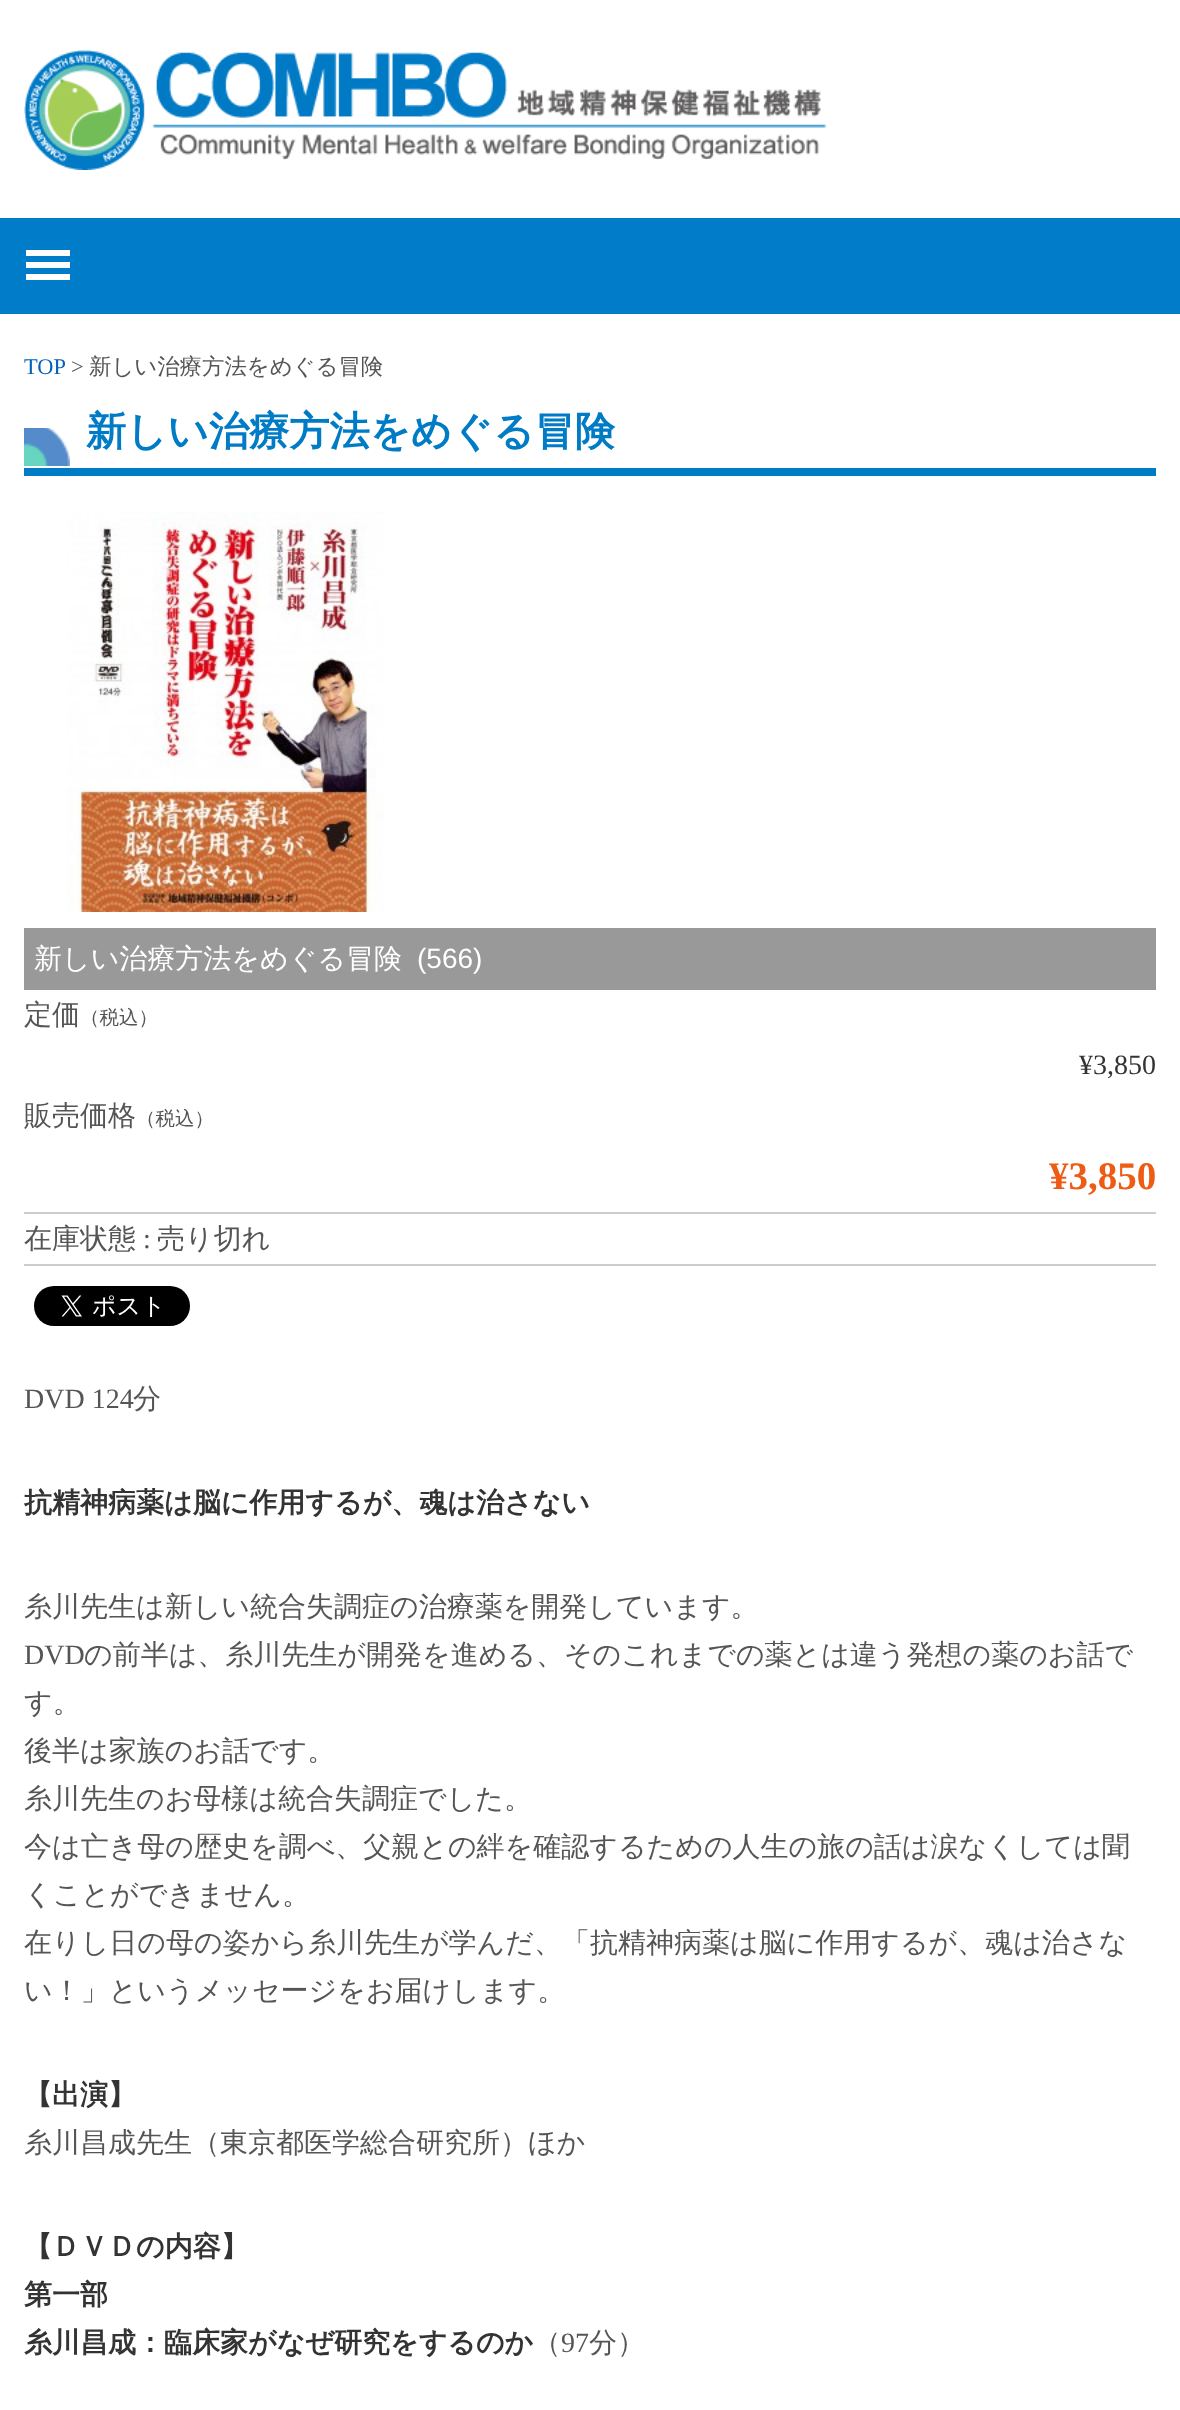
async function draw(canvas) {
  canvas.width = 1180;
  canvas.height = 2410;
  const ctx = canvas.getContext('2d');
  ctx.miterLimit = 4;
  ctx.fontKerning = 'normal';
  function label(s, x, y, font, color) {
    ctx.font = font;
    ctx.fillStyle = color;
    ctx.fillText(s, x, y);
  }
  function rect(x, y, w, h, color) {
    ctx.fillStyle = color;
    ctx.fillRect(x, y, w, h);
  }
  async function image(src, x, y, w, h) {
    const img = new Image();
    img.src = src;
    await img.decode();
    ctx.drawImage(img, x, y, w, h);
  }

  rect(0, 0, 1180, 2410, '#fff');
  await image('assets/img1.png', 24, 50, 802, 120);
  rect(0, 218, 1180, 96, '#007cc9');
  rect(26, 250, 44, 6, '#fff');
  rect(26, 262, 44, 6, '#fff');
  rect(26, 274, 44, 6, '#fff');
  label('TOP', 24, 374, '22.4px Liberation Serif', '#0062b8');
  label('>', 71, 374, '22.4px Liberation Serif', '#555');
  label('新しい治療方法をめぐる冒険', 89, 374, '500 22.4px WenQuanYi Zen Hei', '#555');
  rect(24, 468, 1132, 8, '#007bc6');
  await image('assets/img2.png', 24, 428, 46, 38);
  label('新しい治療方法をめぐる冒険', 86, 445, 'bold 40.25px WenQuanYi Zen Hei', '#007bc6');
  await image('assets/img3.png', 67, 512, 317, 400);
  rect(24, 928, 1132, 62, '#999');
  label('新しい治療方法をめぐる冒険', 34, 968, '500 28px WenQuanYi Zen Hei', '#fff');
  label('(566)', 417, 968, '28px Liberation Sans', '#fff');
  rect(24, 1212, 1132, 2, '#ccc');
  label('定価', 24, 1024, '500 28px WenQuanYi Zen Hei', '#555');
  label('（税込）', 80, 1024, '500 19.5px WenQuanYi Zen Hei', '#555');
  label('¥3,850', 1079, 1074, '28px Liberation Serif', '#333');
  label('販売価格', 24, 1125, '500 28px WenQuanYi Zen Hei', '#555');
  label('（税込）', 136, 1125, '500 19.5px WenQuanYi Zen Hei', '#555');
  label('¥3,850', 1049, 1189, 'bold 39px Liberation Serif', '#ed5b14');
  rect(24, 1264, 1132, 2, '#ccc');
  label('在庫状態', 24, 1248, '500 28px WenQuanYi Zen Hei', '#555');
  label(':', 143, 1248, '28px Liberation Serif', '#555');
  label('売り切れ', 157, 1248, '500 28px WenQuanYi Zen Hei', '#555');
  await image('assets/img4.png', 34, 1286, 156, 40);
  label('DVD 124', 24, 1408, '28px Liberation Serif', '#555');
  label('分', 133, 1408, '500 28px WenQuanYi Zen Hei', '#555');
  label('抗精神病薬は脳に作用するが、魂は治さない', 24, 1512, 'bold 28px WenQuanYi Zen Hei', '#333');
  label('糸川先生は新しい統合失調症の治療薬を開発しています。', 24, 1616, '500 28px WenQuanYi Zen Hei', '#555');
  label('DVD', 24, 1664, '28px Liberation Serif', '#555');
  label('の前半は、糸川先生が開発を進める、そのこれまでの薬とは違う発想の薬のお話で', 84, 1664, '500 28px WenQuanYi Zen Hei', '#555');
  label('す。', 24, 1712, '500 28px WenQuanYi Zen Hei', '#555');
  label('後半は家族のお話です。', 24, 1760, '500 28px WenQuanYi Zen Hei', '#555');
  label('糸川先生のお母様は統合失調症でした。', 24, 1808, '500 28px WenQuanYi Zen Hei', '#555');
  label('今は亡き母の歴史を調べ、父親との絆を確認するための人生の旅の話は涙なくしては聞', 24, 1856, '500 28px WenQuanYi Zen Hei', '#555');
  label('くことができません。', 24, 1904, '500 28px WenQuanYi Zen Hei', '#555');
  label('在りし日の母の姿から糸川先生が学んだ、「抗精神病薬は脳に作用するが、魂は治さな', 24, 1952, '500 28px WenQuanYi Zen Hei', '#555');
  label('い！」というメッセージをお届けします。', 24, 2000, '500 28px WenQuanYi Zen Hei', '#555');
  label('【出演】', 24, 2104, 'bold 28px WenQuanYi Zen Hei', '#333');
  label('糸川昌成先生（東京都医学総合研究所）ほか', 24, 2152, '500 28px WenQuanYi Zen Hei', '#555');
  label('【ＤＶＤの内容】', 24, 2256, 'bold 28px WenQuanYi Zen Hei', '#333');
  label('第一部', 24, 2304, 'bold 28px WenQuanYi Zen Hei', '#333');
  label('糸川昌成：臨床家がなぜ研究をするのか', 24, 2352, 'bold 28px WenQuanYi Zen Hei', '#333');
  label('（', 533, 2352, '500 28px WenQuanYi Zen Hei', '#555');
  label('97', 561, 2352, '28px Liberation Serif', '#555');
  label('分）', 589, 2352, '500 28px WenQuanYi Zen Hei', '#555');
}

draw(document.querySelector('canvas'));
